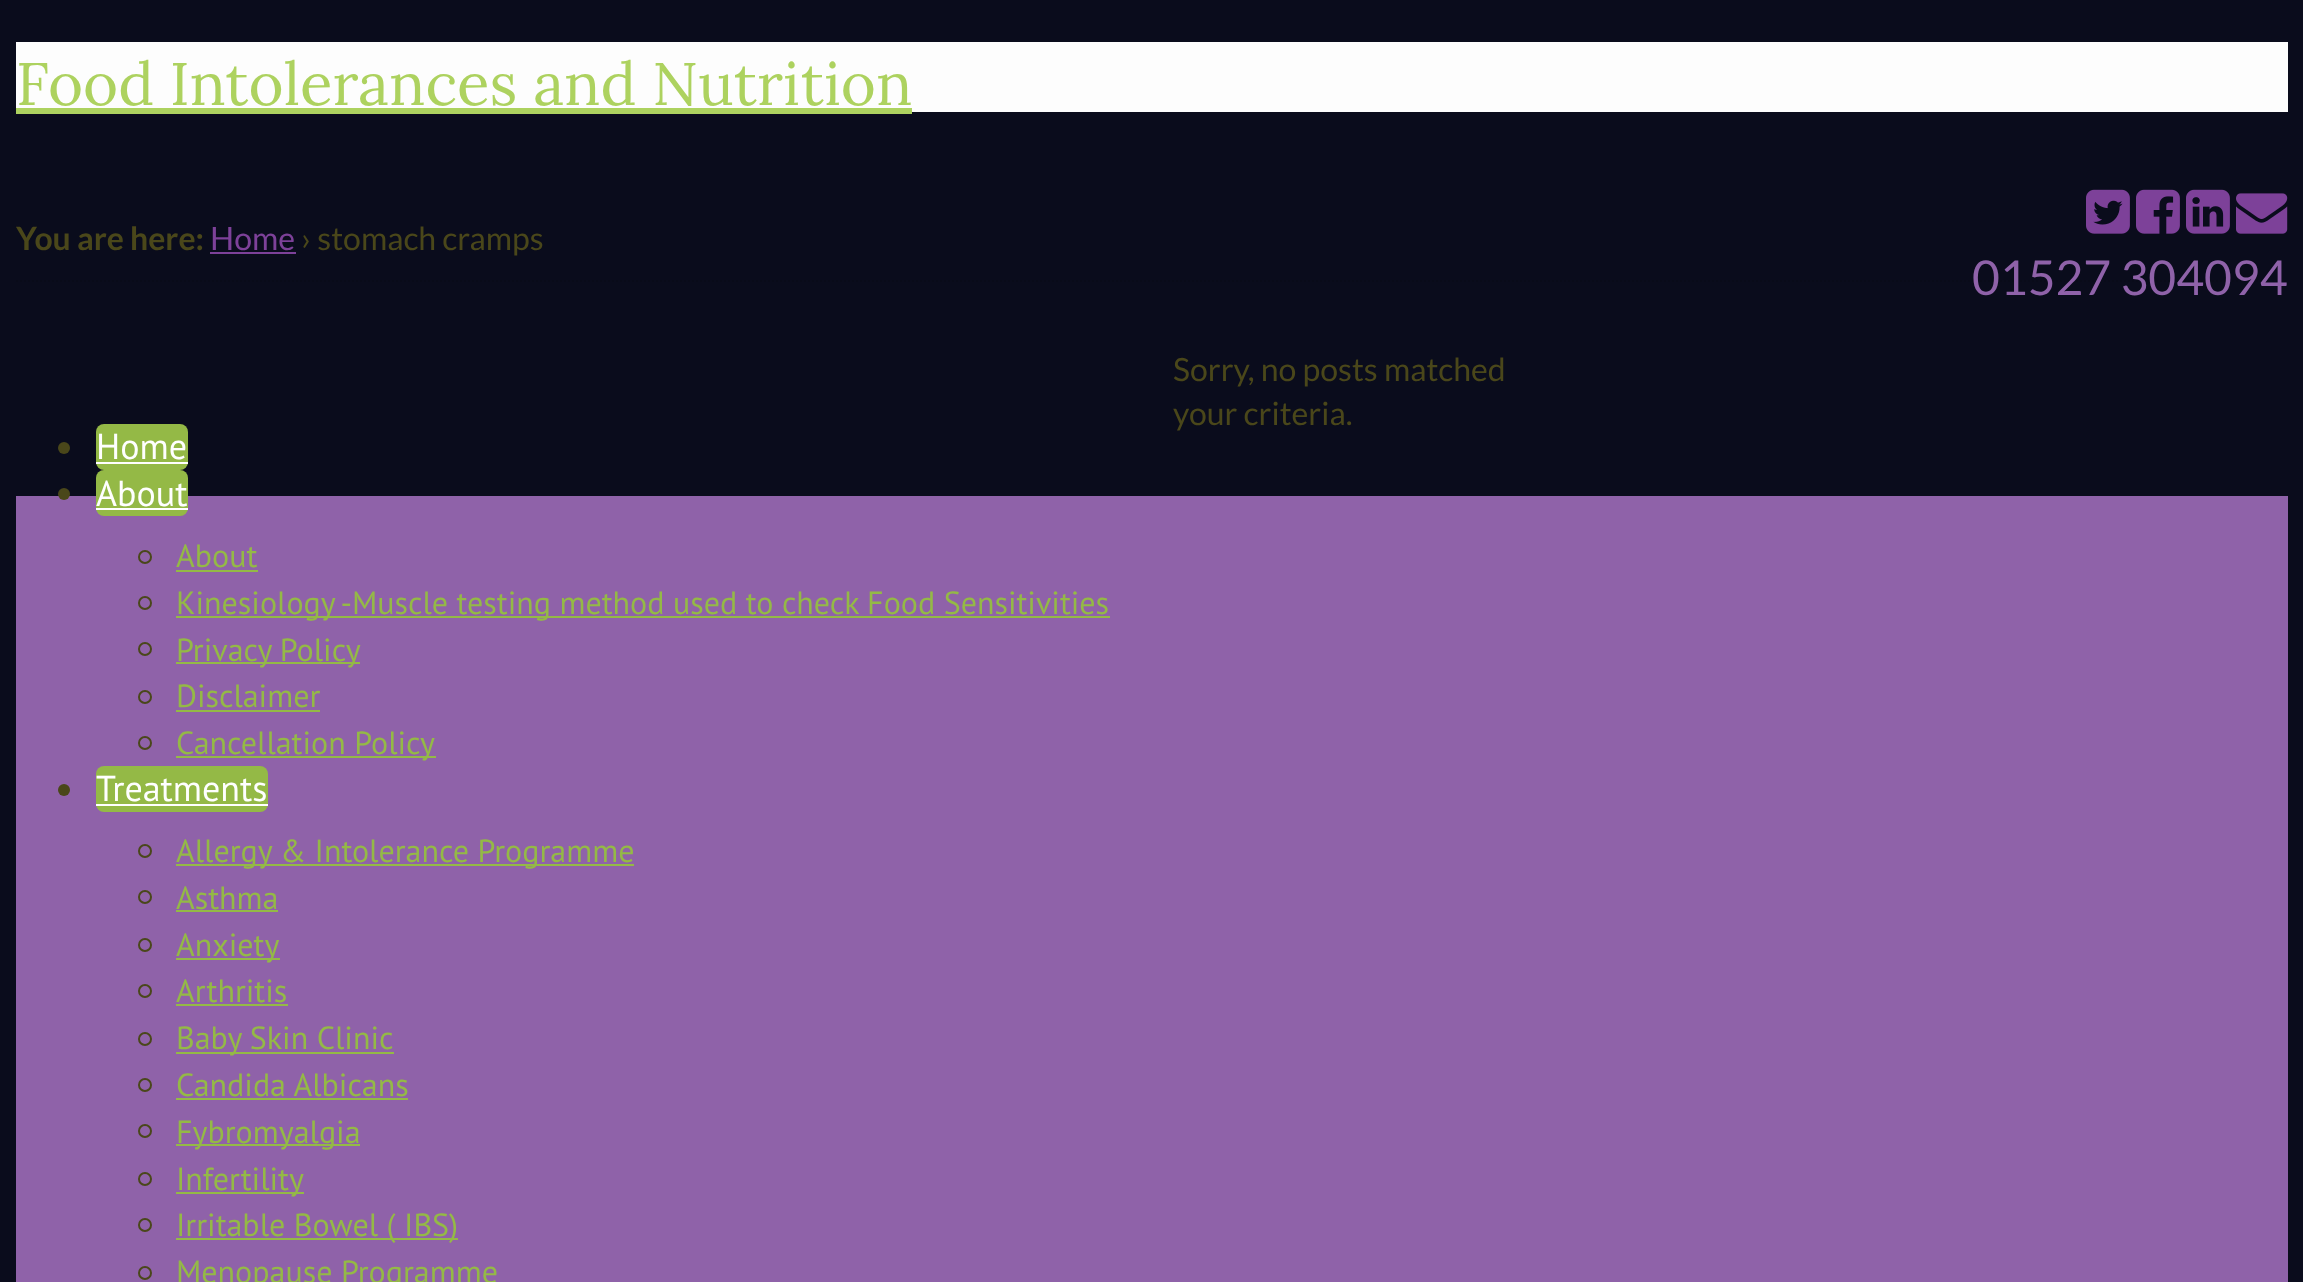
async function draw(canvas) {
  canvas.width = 2303;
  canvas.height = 1282;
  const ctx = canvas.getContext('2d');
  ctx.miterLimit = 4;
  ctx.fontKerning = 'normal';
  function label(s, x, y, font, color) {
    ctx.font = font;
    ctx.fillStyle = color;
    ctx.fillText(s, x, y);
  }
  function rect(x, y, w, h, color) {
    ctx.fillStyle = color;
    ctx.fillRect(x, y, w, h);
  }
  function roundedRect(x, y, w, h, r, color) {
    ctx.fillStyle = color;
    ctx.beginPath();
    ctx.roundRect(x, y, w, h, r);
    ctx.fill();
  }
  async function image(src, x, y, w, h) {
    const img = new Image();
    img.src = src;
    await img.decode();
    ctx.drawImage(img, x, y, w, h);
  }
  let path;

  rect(0, 0, 2303, 1282, '#0a0c1c');
  rect(16, 42, 2272, 70, '#fdfdfd');
  label('Food Intolerances and Nutrition', 16, 105, '60px Lora', '#add25f');
  rect(16, 108, 896, 6, '#add25f');
  await image('assets/img1.png', 2086, 189, 44, 45);
  await image('assets/img2.png', 2136, 189, 44, 45);
  await image('assets/img3.png', 2186, 189, 44, 45);
  await image('assets/img4.png', 2236, 193, 52, 41);
  path = new Path2D('M16 281H2288');
  ctx.strokeStyle = '#090b19';
  ctx.lineWidth = 2;
  ctx.setLineDash([2, 2]);
  ctx.stroke(path);
  label('01527 304094', 1972, 295, '48px Lato', '#8f62a9');
  ctx.fillStyle = '#4a471a';
  ctx.beginPath();
  ctx.arc(64, 448, 6, 0, 2 * Math.PI);
  ctx.fill();
  roundedRect(96, 424, 92, 46, 8, '#94b946');
  label('Home', 96, 459, '36px PT Sans', '#fff');
  rect(96, 462, 92, 2, '#fff');
  rect(16, 496, 2272, 786, '#8f62a9');
  ctx.fillStyle = '#4a471a';
  ctx.beginPath();
  ctx.arc(64, 494, 6, 0, 2 * Math.PI);
  ctx.fill();
  roundedRect(96, 470, 92, 46, 8, '#94b946');
  label('About', 96, 506, '36px PT Sans', '#fff');
  rect(96, 508, 92, 2, '#fff');
  ctx.beginPath();
  ctx.arc(145, 557, 6, 0, 2 * Math.PI);
  ctx.strokeStyle = '#4a471a';
  ctx.setLineDash([]);
  ctx.stroke();
  label('About', 176, 567, '32px PT Sans', '#94b946');
  rect(176, 570, 82, 2, '#94b946');
  ctx.beginPath();
  ctx.arc(145, 603, 6, 0, 2 * Math.PI);
  ctx.stroke();
  rect(176, 616, 934, 2, '#94b946');
  label('Kinesiology -Muscle testing method used to check Food Sensitivities', 176, 614, '32px PT Sans', '#94b946');
  ctx.beginPath();
  ctx.arc(145, 649, 6, 0, 2 * Math.PI);
  ctx.stroke();
  rect(176, 662, 184, 2, '#94b946');
  label('Privacy Policy', 176, 661, '32px PT Sans', '#94b946');
  ctx.beginPath();
  ctx.arc(145, 697, 6, 0, 2 * Math.PI);
  ctx.stroke();
  label('Disclaimer', 176, 707, '32px PT Sans', '#94b946');
  rect(176, 710, 144, 2, '#94b946');
  ctx.beginPath();
  ctx.arc(145, 743, 6, 0, 2 * Math.PI);
  ctx.stroke();
  rect(176, 756, 260, 2, '#94b946');
  label('Cancellation Policy', 176, 754, '32px PT Sans', '#94b946');
  ctx.fillStyle = '#4a471a';
  ctx.beginPath();
  ctx.arc(64, 790, 6, 0, 2 * Math.PI);
  ctx.fill();
  roundedRect(96, 766, 172, 46, 8, '#94b946');
  label('Treatments', 96, 801, '36px PT Sans', '#fff');
  rect(96, 804, 172, 2, '#fff');
  ctx.beginPath();
  ctx.arc(145, 851, 6, 0, 2 * Math.PI);
  ctx.stroke();
  rect(176, 864, 458, 2, '#94b946');
  label('Allergy & Intolerance Programme', 176, 862, '32px PT Sans', '#94b946');
  ctx.beginPath();
  ctx.arc(145, 897, 6, 0, 2 * Math.PI);
  ctx.stroke();
  label('Asthma', 176, 909, '32px PT Sans', '#94b946');
  rect(176, 910, 102, 2, '#94b946');
  ctx.beginPath();
  ctx.arc(145, 945, 6, 0, 2 * Math.PI);
  ctx.stroke();
  rect(176, 958, 104, 2, '#94b946');
  label('Anxiety', 176, 956, '32px PT Sans', '#94b946');
  ctx.beginPath();
  ctx.arc(145, 991, 6, 0, 2 * Math.PI);
  ctx.stroke();
  label('Arthritis', 176, 1002, '32px PT Sans', '#94b946');
  rect(176, 1004, 112, 2, '#94b946');
  ctx.beginPath();
  ctx.arc(145, 1039, 6, 0, 2 * Math.PI);
  ctx.stroke();
  rect(176, 1052, 218, 2, '#94b946');
  label('Baby Skin Clinic', 176, 1049, '32px PT Sans', '#94b946');
  ctx.beginPath();
  ctx.arc(145, 1085, 6, 0, 2 * Math.PI);
  ctx.stroke();
  label('Candida Albicans', 176, 1096, '32px PT Sans', '#94b946');
  rect(176, 1098, 232, 2, '#94b946');
  ctx.beginPath();
  ctx.arc(145, 1131, 6, 0, 2 * Math.PI);
  ctx.stroke();
  rect(176, 1144, 184, 2, '#94b946');
  label('Fybromyalgia', 176, 1143, '32px PT Sans', '#94b946');
  ctx.beginPath();
  ctx.arc(145, 1179, 6, 0, 2 * Math.PI);
  ctx.stroke();
  rect(176, 1192, 128, 2, '#94b946');
  label('Infertility', 176, 1190, '32px PT Sans', '#94b946');
  ctx.beginPath();
  ctx.arc(145, 1225, 6, 0, 2 * Math.PI);
  ctx.stroke();
  rect(176, 1238, 282, 2, '#94b946');
  label('Irritable Bowel ( IBS)', 176, 1236, '32px PT Sans', '#94b946');
  ctx.beginPath();
  ctx.arc(145, 1273, 6, 0, 2 * Math.PI);
  ctx.stroke();
  label('Menopause Programme', 176, 1283, '32px PT Sans', '#94b946');
  label('You are here:', 16, 250, 'bold 32px Lato', '#4a471a');
  label('Home', 210, 250, '32px Lato', '#7d4199');
  rect(210, 252, 86, 2, '#7d4199');
  label('› stomach cramps', 301, 250, '32px Lato', '#4a471a');
  label('Sorry, no posts matched', 1173, 381, '32px Lato', '#4a471a');
  label('your criteria.', 1173, 425, '32px Lato', '#4a471a');
}

draw(document.querySelector('canvas'));
